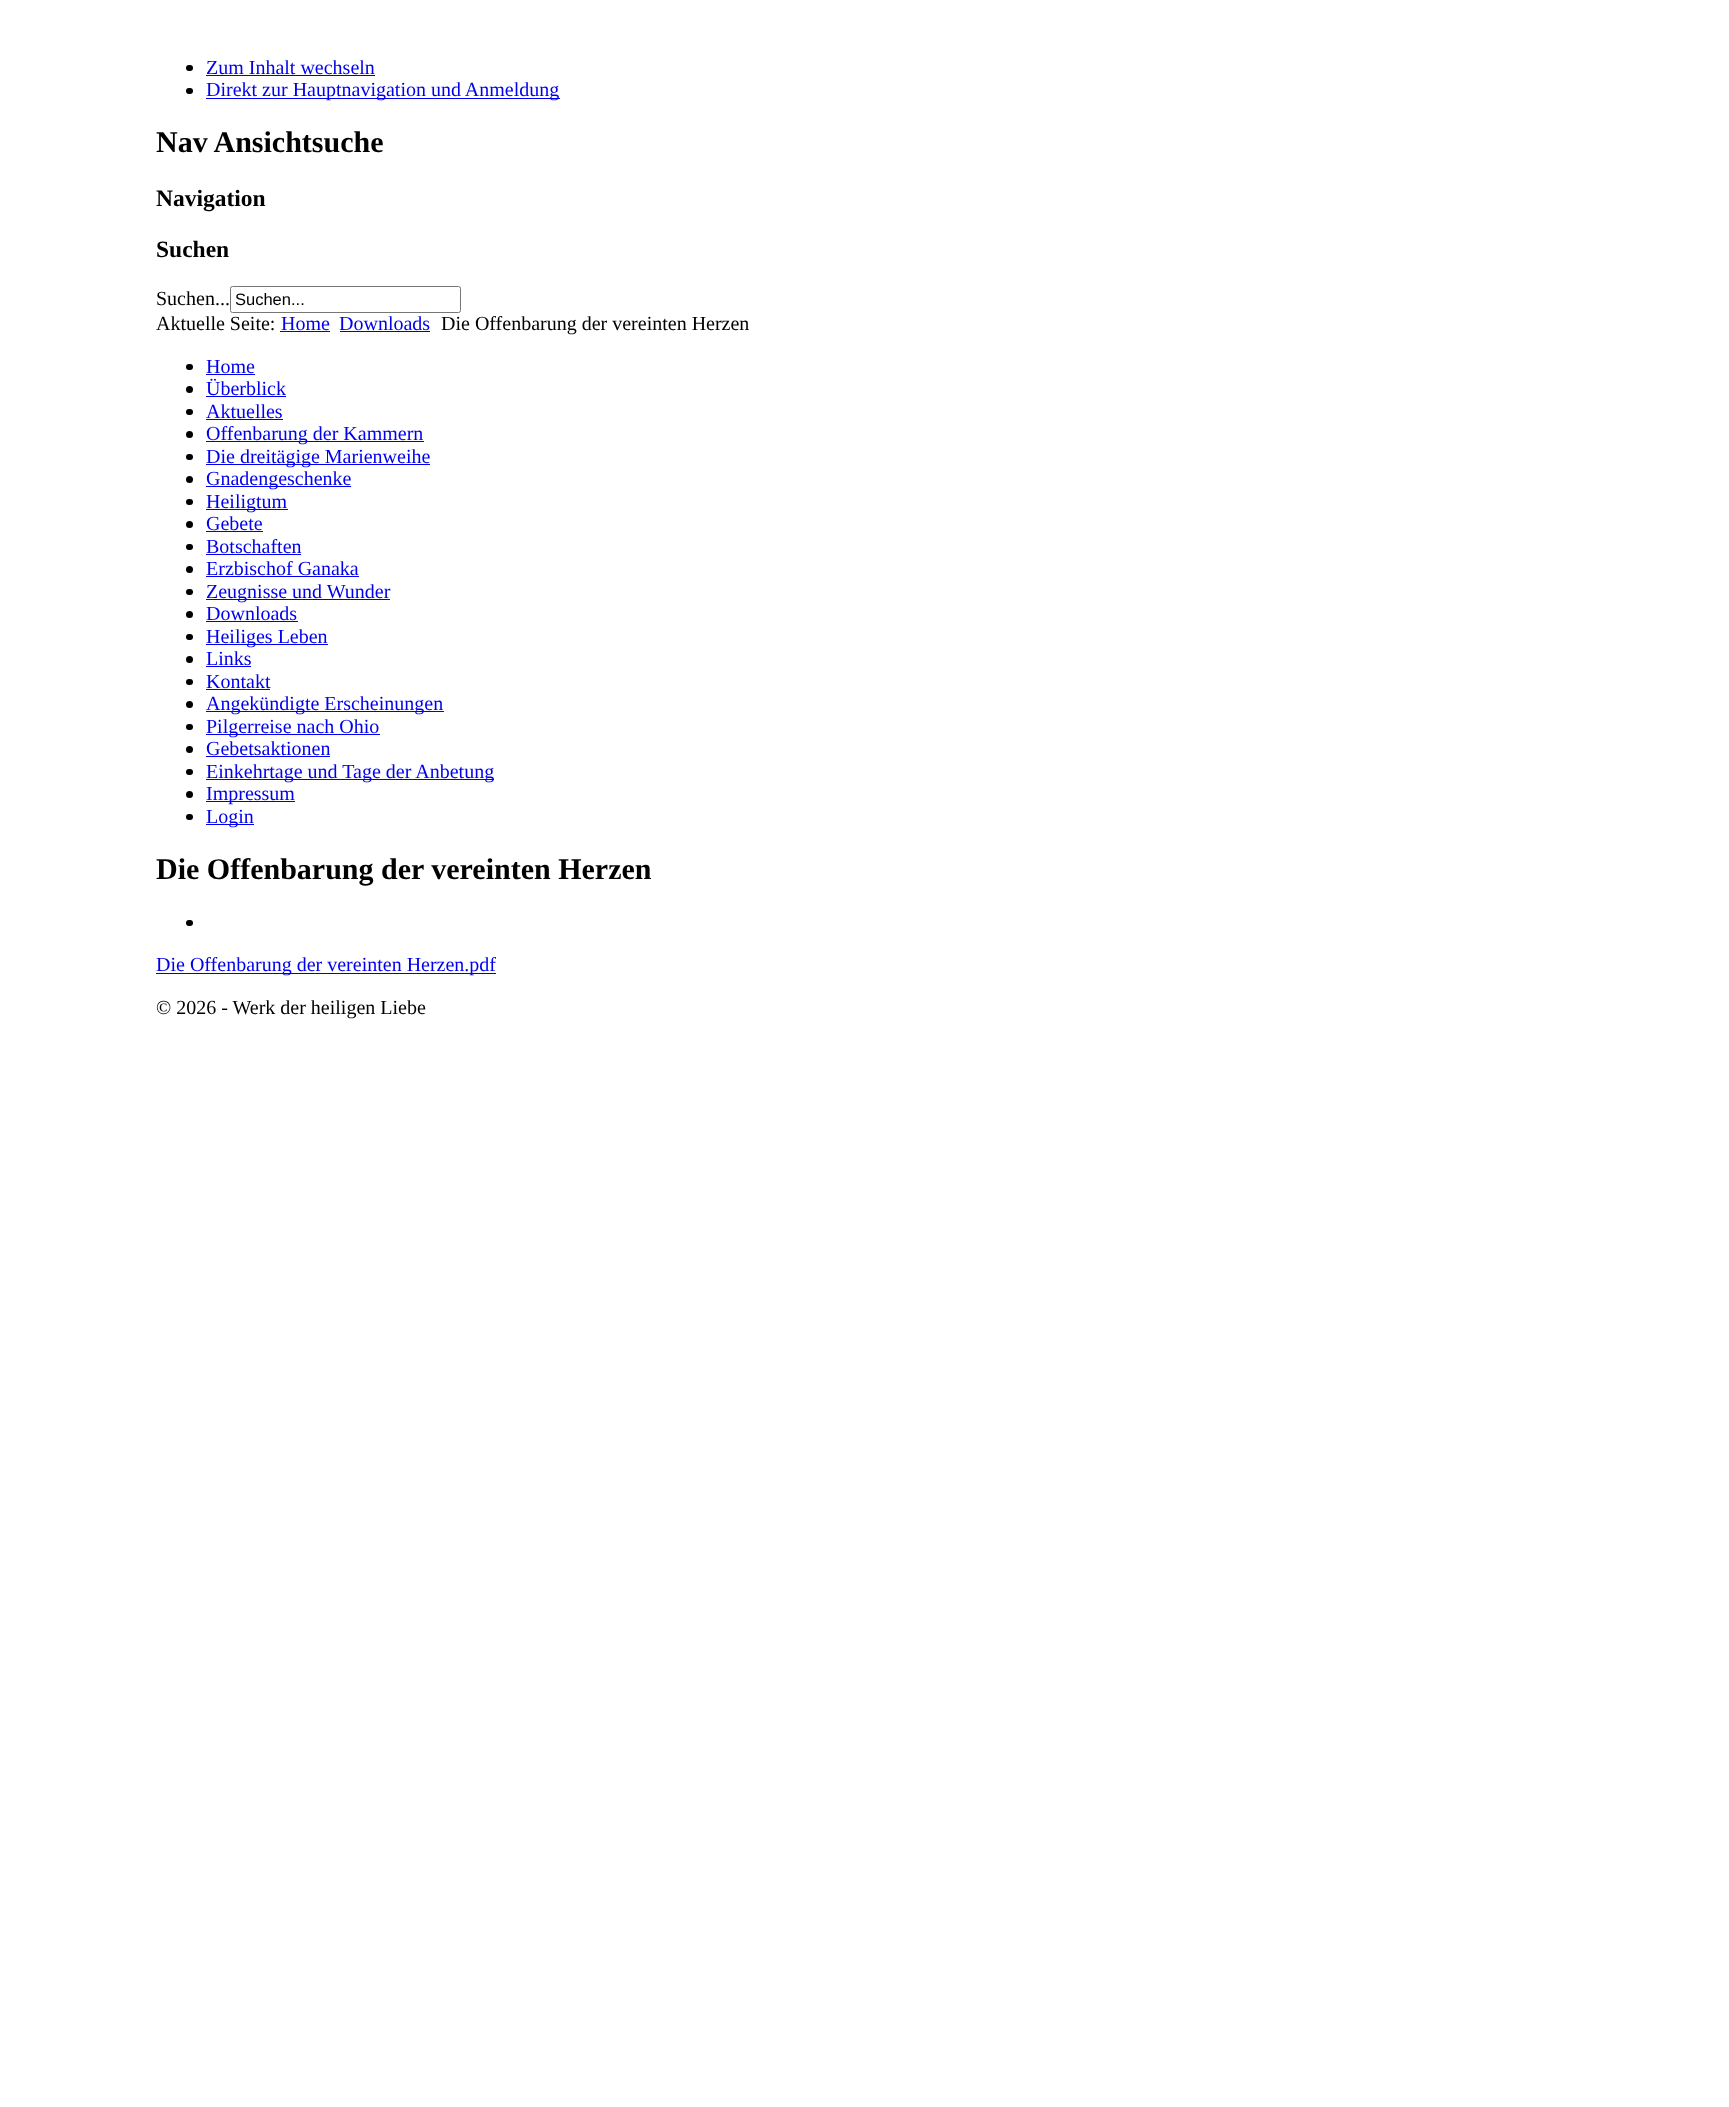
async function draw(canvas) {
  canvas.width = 1729;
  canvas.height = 2107;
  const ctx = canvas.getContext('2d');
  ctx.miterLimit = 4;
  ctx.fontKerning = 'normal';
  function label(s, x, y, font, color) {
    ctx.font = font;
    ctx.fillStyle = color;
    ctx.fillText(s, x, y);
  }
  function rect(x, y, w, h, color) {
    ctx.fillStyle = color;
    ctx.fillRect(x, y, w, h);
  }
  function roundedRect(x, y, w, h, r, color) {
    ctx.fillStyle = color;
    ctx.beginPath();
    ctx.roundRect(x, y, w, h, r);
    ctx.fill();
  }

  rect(0, 0, 1729, 2107, '#fff');
  roundedRect(186, 65, 7, 6, 3, '#000');
  label('Zum Inhalt wechseln', 206, 74, '20px Liberation Serif', '#00e');
  rect(206, 75, 169, 1, '#00e');
  roundedRect(186, 88, 7, 6, 3, '#000');
  rect(206, 98, 354, 1, '#00e');
  label('Direkt zur Hauptnavigation und Anmeldung', 206, 96, '20px Liberation Serif', '#00e');
  label('Nav Ansichtsuche', 156, 152, 'bold 30px Liberation Serif', '#000');
  label('Navigation', 156, 206, 'bold 23.5px Liberation Serif', '#000');
  label('Suchen', 156, 257, 'bold 23.5px Liberation Serif', '#000');
  label('Suchen...', 156, 305, '20px Liberation Serif', '#000');
  ctx.beginPath();
  ctx.roundRect(230.5, 286.5, 230, 26, 2);
  ctx.strokeStyle = '#767676';
  ctx.stroke();
  label('Suchen...', 235, 305, '16.5px Liberation Sans', '#000');
  label('Aktuelle Seite:', 156, 330, '20px Liberation Serif', '#000');
  label('Home', 281, 330, '20px Liberation Serif', '#00e');
  rect(280, 331, 50, 1, '#00e');
  label('Downloads', 339, 330, '20px Liberation Serif', '#00e');
  rect(340, 331, 90, 1, '#00e');
  label('Die Offenbarung der vereinten Herzen', 441, 330, '20px Liberation Serif', '#000');
  roundedRect(186, 364, 7, 6, 3, '#000');
  label('Home', 206, 373, '20px Liberation Serif', '#00e');
  rect(206, 374, 49, 1, '#00e');
  ctx.fillStyle = '#000';
  ctx.beginPath();
  ctx.arc(189.5, 389.5, 3.5, 0, 2 * Math.PI);
  ctx.fill();
  label('Überblick', 206, 395, '20px Liberation Serif', '#00e');
  rect(206, 396, 80, 1, '#00e');
  roundedRect(186, 409, 7, 6, 3, '#000');
  label('Aktuelles', 206, 418, '20px Liberation Serif', '#00e');
  rect(206, 419, 77, 1, '#00e');
  ctx.fillStyle = '#000';
  ctx.beginPath();
  ctx.arc(189.5, 434.5, 3.5, 0, 2 * Math.PI);
  ctx.fill();
  rect(206, 441, 218, 1, '#00e');
  label('Offenbarung der Kammern', 206, 440, '20px Liberation Serif', '#00e');
  roundedRect(186, 454, 7, 6, 3, '#000');
  rect(206, 464, 224, 1, '#00e');
  label('Die dreitägige Marienweihe', 206, 463, '20px Liberation Serif', '#00e');
  ctx.fillStyle = '#000';
  ctx.beginPath();
  ctx.arc(189.5, 479.5, 3.5, 0, 2 * Math.PI);
  ctx.fill();
  rect(206, 486, 145, 1, '#00e');
  label('Gnadengeschenke', 206, 485, '20px Liberation Serif', '#00e');
  roundedRect(186, 499, 7, 6, 3, '#000');
  rect(206, 509, 82, 1, '#00e');
  label('Heiligtum', 206, 508, '20px Liberation Serif', '#00e');
  ctx.fillStyle = '#000';
  ctx.beginPath();
  ctx.arc(189.5, 524.5, 3.5, 0, 2 * Math.PI);
  ctx.fill();
  label('Gebete', 206, 530, '20px Liberation Serif', '#00e');
  rect(206, 531, 57, 1, '#00e');
  roundedRect(186, 544, 7, 6, 3, '#000');
  label('Botschaften', 206, 553, '20px Liberation Serif', '#00e');
  rect(206, 554, 95, 1, '#00e');
  ctx.fillStyle = '#000';
  ctx.beginPath();
  ctx.arc(189.5, 569.5, 3.5, 0, 2 * Math.PI);
  ctx.fill();
  label('Erzbischof Ganaka', 206, 575, '20px Liberation Serif', '#00e');
  rect(206, 576, 153, 1, '#00e');
  roundedRect(186, 589, 7, 6, 3, '#000');
  rect(206, 599, 184, 1, '#00e');
  label('Zeugnisse und Wunder', 206, 598, '20px Liberation Serif', '#00e');
  ctx.fillStyle = '#000';
  ctx.beginPath();
  ctx.arc(189.5, 614.5, 3.5, 0, 2 * Math.PI);
  ctx.fill();
  label('Downloads', 206, 620, '20px Liberation Serif', '#00e');
  rect(206, 621, 92, 1, '#00e');
  roundedRect(186, 634, 7, 6, 3, '#000');
  rect(206, 644, 122, 1, '#00e');
  label('Heiliges Leben', 206, 643, '20px Liberation Serif', '#00e');
  ctx.fillStyle = '#000';
  ctx.beginPath();
  ctx.arc(189.5, 659.5, 3.5, 0, 2 * Math.PI);
  ctx.fill();
  label('Links', 206, 665, '20px Liberation Serif', '#00e');
  rect(206, 666, 45, 1, '#00e');
  roundedRect(186, 679, 7, 6, 3, '#000');
  label('Kontakt', 206, 688, '20px Liberation Serif', '#00e');
  rect(206, 689, 64, 1, '#00e');
  ctx.fillStyle = '#000';
  ctx.beginPath();
  ctx.arc(189.5, 704.5, 3.5, 0, 2 * Math.PI);
  ctx.fill();
  rect(206, 711, 238, 1, '#00e');
  label('Angekündigte Erscheinungen', 206, 710, '20px Liberation Serif', '#00e');
  roundedRect(186, 724, 7, 6, 3, '#000');
  rect(206, 734, 174, 1, '#00e');
  label('Pilgerreise nach Ohio', 206, 733, '20px Liberation Serif', '#00e');
  ctx.fillStyle = '#000';
  ctx.beginPath();
  ctx.arc(189.5, 749.5, 3.5, 0, 2 * Math.PI);
  ctx.fill();
  label('Gebetsaktionen', 206, 755, '20px Liberation Serif', '#00e');
  rect(206, 756, 124, 1, '#00e');
  roundedRect(186, 769, 7, 6, 3, '#000');
  rect(206, 779, 288, 1, '#00e');
  label('Einkehrtage und Tage der Anbetung', 206, 778, '20px Liberation Serif', '#00e');
  ctx.fillStyle = '#000';
  ctx.beginPath();
  ctx.arc(189.5, 794.5, 3.5, 0, 2 * Math.PI);
  ctx.fill();
  rect(206, 801, 89, 1, '#00e');
  label('Impressum', 206, 800, '20px Liberation Serif', '#00e');
  roundedRect(186, 814, 7, 6, 3, '#000');
  rect(206, 824, 48, 1, '#00e');
  label('Login', 206, 823, '20px Liberation Serif', '#00e');
  label('Die Offenbarung der vereinten Herzen', 156, 879, 'bold 30px Liberation Serif', '#000');
  roundedRect(186, 920, 7, 6, 3, '#000');
  rect(156, 973, 340, 1, '#00e');
  label('Die Offenbarung der vereinten Herzen.pdf', 156, 971, '20px Liberation Serif', '#00e');
  label('© 2026 - Werk der heiligen Liebe', 156, 1014, '20px Liberation Serif', '#000');
}

draw(document.querySelector('canvas'));
